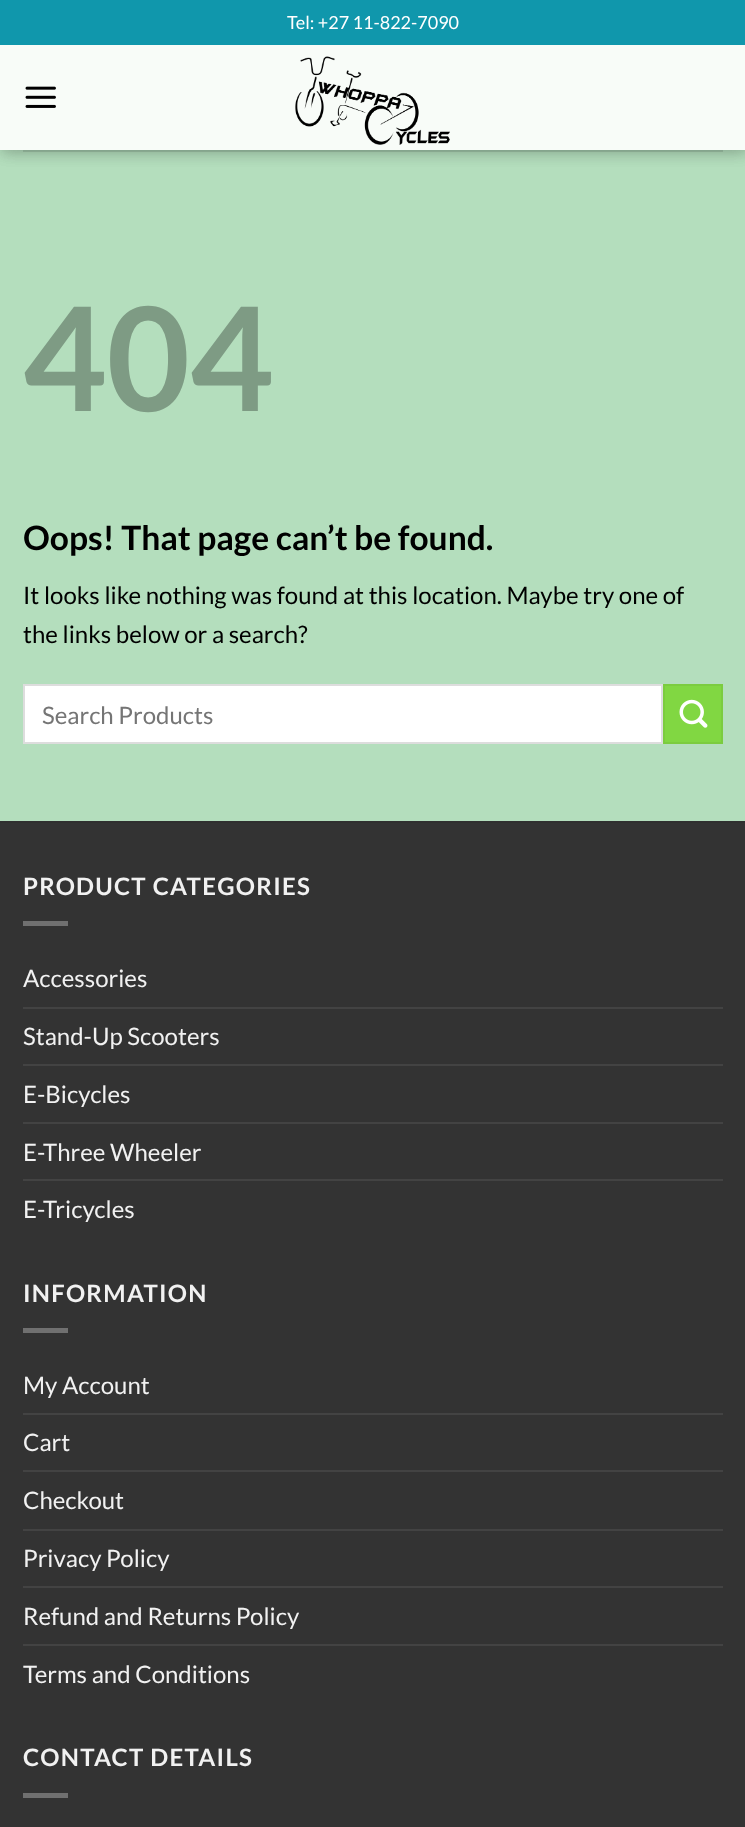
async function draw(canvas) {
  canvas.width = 745;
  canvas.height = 1827;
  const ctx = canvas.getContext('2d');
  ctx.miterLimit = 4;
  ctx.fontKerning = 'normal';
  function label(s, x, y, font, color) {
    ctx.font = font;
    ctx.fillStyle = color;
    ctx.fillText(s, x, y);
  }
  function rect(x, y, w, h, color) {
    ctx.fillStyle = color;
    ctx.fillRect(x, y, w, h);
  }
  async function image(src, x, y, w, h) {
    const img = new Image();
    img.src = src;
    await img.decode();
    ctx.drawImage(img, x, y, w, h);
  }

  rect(0, 0, 745, 1827, '#b4debd');
  ctx.fillStyle = '#00000026';
  ctx.filter = 'blur(7.5px)';
  ctx.beginPath();
  ctx.rect(2, 2, 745, 150);
  ctx.fill();
  ctx.filter = 'none';
  ctx.filter = 'blur(7.5px)';
  ctx.beginPath();
  ctx.rect(2, 2, 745, 150);
  ctx.fill();
  ctx.filter = 'none';
  rect(0, 45, 745, 105, '#f8fcf8');
  rect(0, 0, 745, 45, '#1097ac');
  label('Tel: +27 11-822-7090', 287, 29, '18px Lato', '#fff');
  await image('assets/img1.png', 25, 86, 31, 22);
  await image('assets/img2.png', 295, 56, 155, 89);
  rect(23, 150, 700, 2, '#0000001a');
  label('404', 23, 411, 'bold 144px Lato', '#7e9b84');
  label('Oops! That page can’t be found.', 23, 550, 'bold 33.6px Lato', '#000');
  label('It looks like nothing was found at this location. Maybe try one of', 23, 604, '24px Lato', '#000');
  label('the links below or a search?', 23, 643, '24px Lato', '#000');
  ctx.fillStyle = '#fff';
  ctx.beginPath();
  ctx.rect(24, 685, 638, 58);
  ctx.fill();
  ctx.strokeStyle = '#ddd';
  ctx.lineWidth = 2;
  ctx.stroke();
  label('Search Products', 42, 724, '24px Lato', '#757575');
  ctx.fillStyle = '#81d742';
  ctx.beginPath();
  ctx.rect(664, 685, 58, 58);
  ctx.fill();
  ctx.strokeStyle = '#7bcc3f';
  ctx.stroke();
  await image('assets/img3.png', 679, 699, 29, 29);
  rect(0, 823, 745, 1004, '#333');
  rect(0, 821, 745, 2, '#303030');
  ctx.letterSpacing = '1.25px';
  label('PRODUCT CATEGORIES', 23, 895, 'bold 24px Lato', '#f1f1f1');
  rect(23, 921, 45, 5, '#707070');
  ctx.letterSpacing = '0px';
  label('Accessories', 23, 987, '24px Lato', '#f1f1f1');
  rect(23, 1007, 700, 2, '#434343');
  label('Stand-Up Scooters', 23, 1045, '24px Lato', '#f1f1f1');
  rect(23, 1064, 700, 2, '#434343');
  label('E-Bicycles', 23, 1103, '24px Lato', '#f1f1f1');
  rect(23, 1122, 700, 2, '#434343');
  label('E-Three Wheeler', 23, 1161, '24px Lato', '#f1f1f1');
  rect(23, 1179, 700, 2, '#434343');
  label('E-Tricycles', 23, 1218, '24px Lato', '#f1f1f1');
  ctx.letterSpacing = '1.25px';
  label('INFORMATION', 23, 1302, 'bold 24px Lato', '#f1f1f1');
  rect(23, 1328, 45, 5, '#707070');
  ctx.letterSpacing = '0px';
  label('My Account', 23, 1394, '24px Lato', '#f1f1f1');
  rect(23, 1413, 700, 2, '#434343');
  label('Cart', 23, 1451, '24px Lato', '#f1f1f1');
  rect(23, 1470, 700, 2, '#434343');
  label('Checkout', 23, 1509, '24px Lato', '#f1f1f1');
  rect(23, 1529, 700, 2, '#434343');
  label('Privacy Policy', 23, 1567, '24px Lato', '#f1f1f1');
  rect(23, 1586, 700, 2, '#434343');
  label('Refund and Returns Policy', 23, 1625, '24px Lato', '#f1f1f1');
  rect(23, 1644, 700, 2, '#434343');
  label('Terms and Conditions', 23, 1683, '24px Lato', '#f1f1f1');
  ctx.letterSpacing = '1.25px';
  label('CONTACT DETAILS', 23, 1766, 'bold 24px Lato', '#f1f1f1');
  rect(23, 1793, 45, 5, '#707070');
}

draw(document.querySelector('canvas'));
